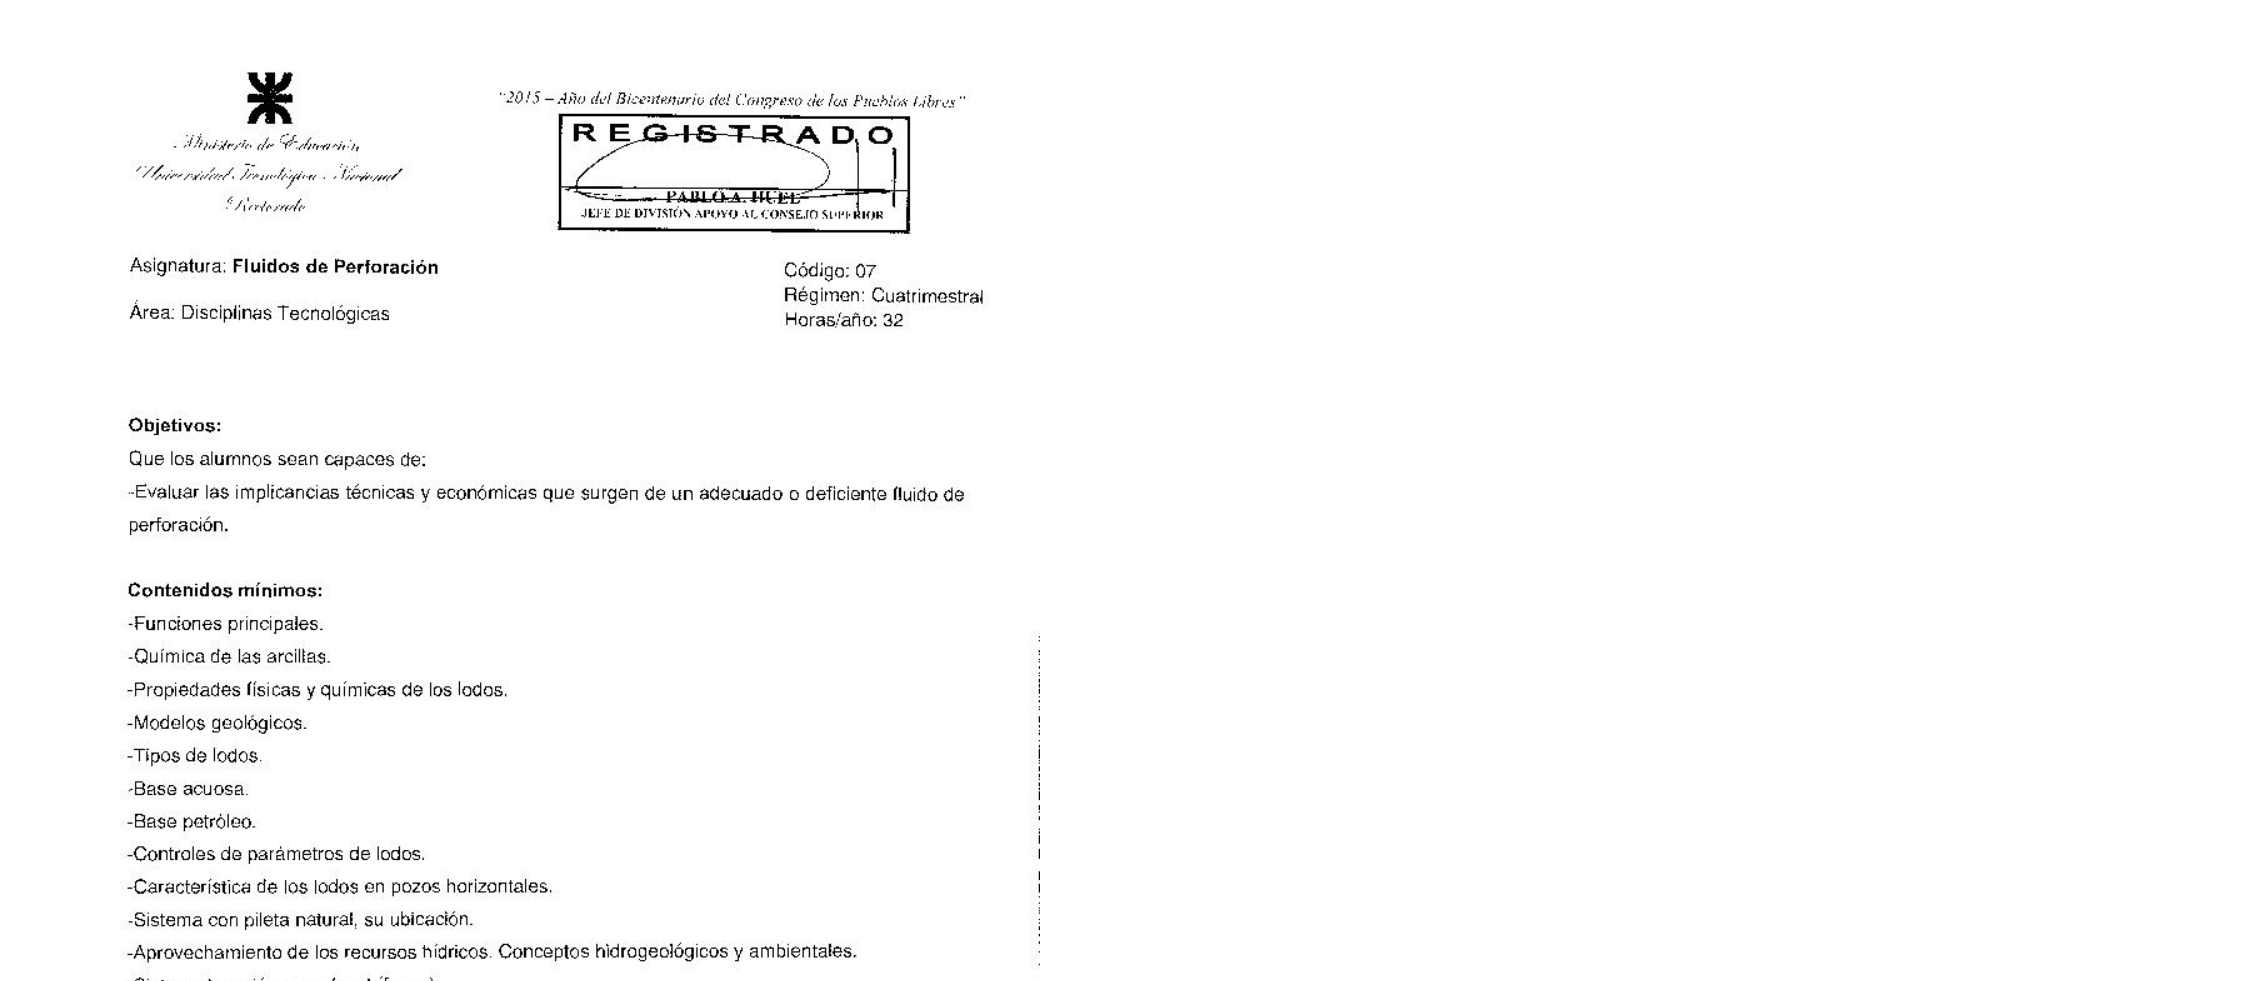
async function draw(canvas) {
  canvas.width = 2257;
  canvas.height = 981;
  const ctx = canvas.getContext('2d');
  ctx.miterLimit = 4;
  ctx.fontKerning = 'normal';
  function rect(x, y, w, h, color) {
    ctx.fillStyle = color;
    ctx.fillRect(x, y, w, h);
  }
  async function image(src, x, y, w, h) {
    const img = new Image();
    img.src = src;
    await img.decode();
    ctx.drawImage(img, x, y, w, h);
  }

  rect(0, 0, 2257, 981, '#fff');
  await image('assets/img1.png', 120, 70, 920, 911);
}

draw(document.querySelector('canvas'));
